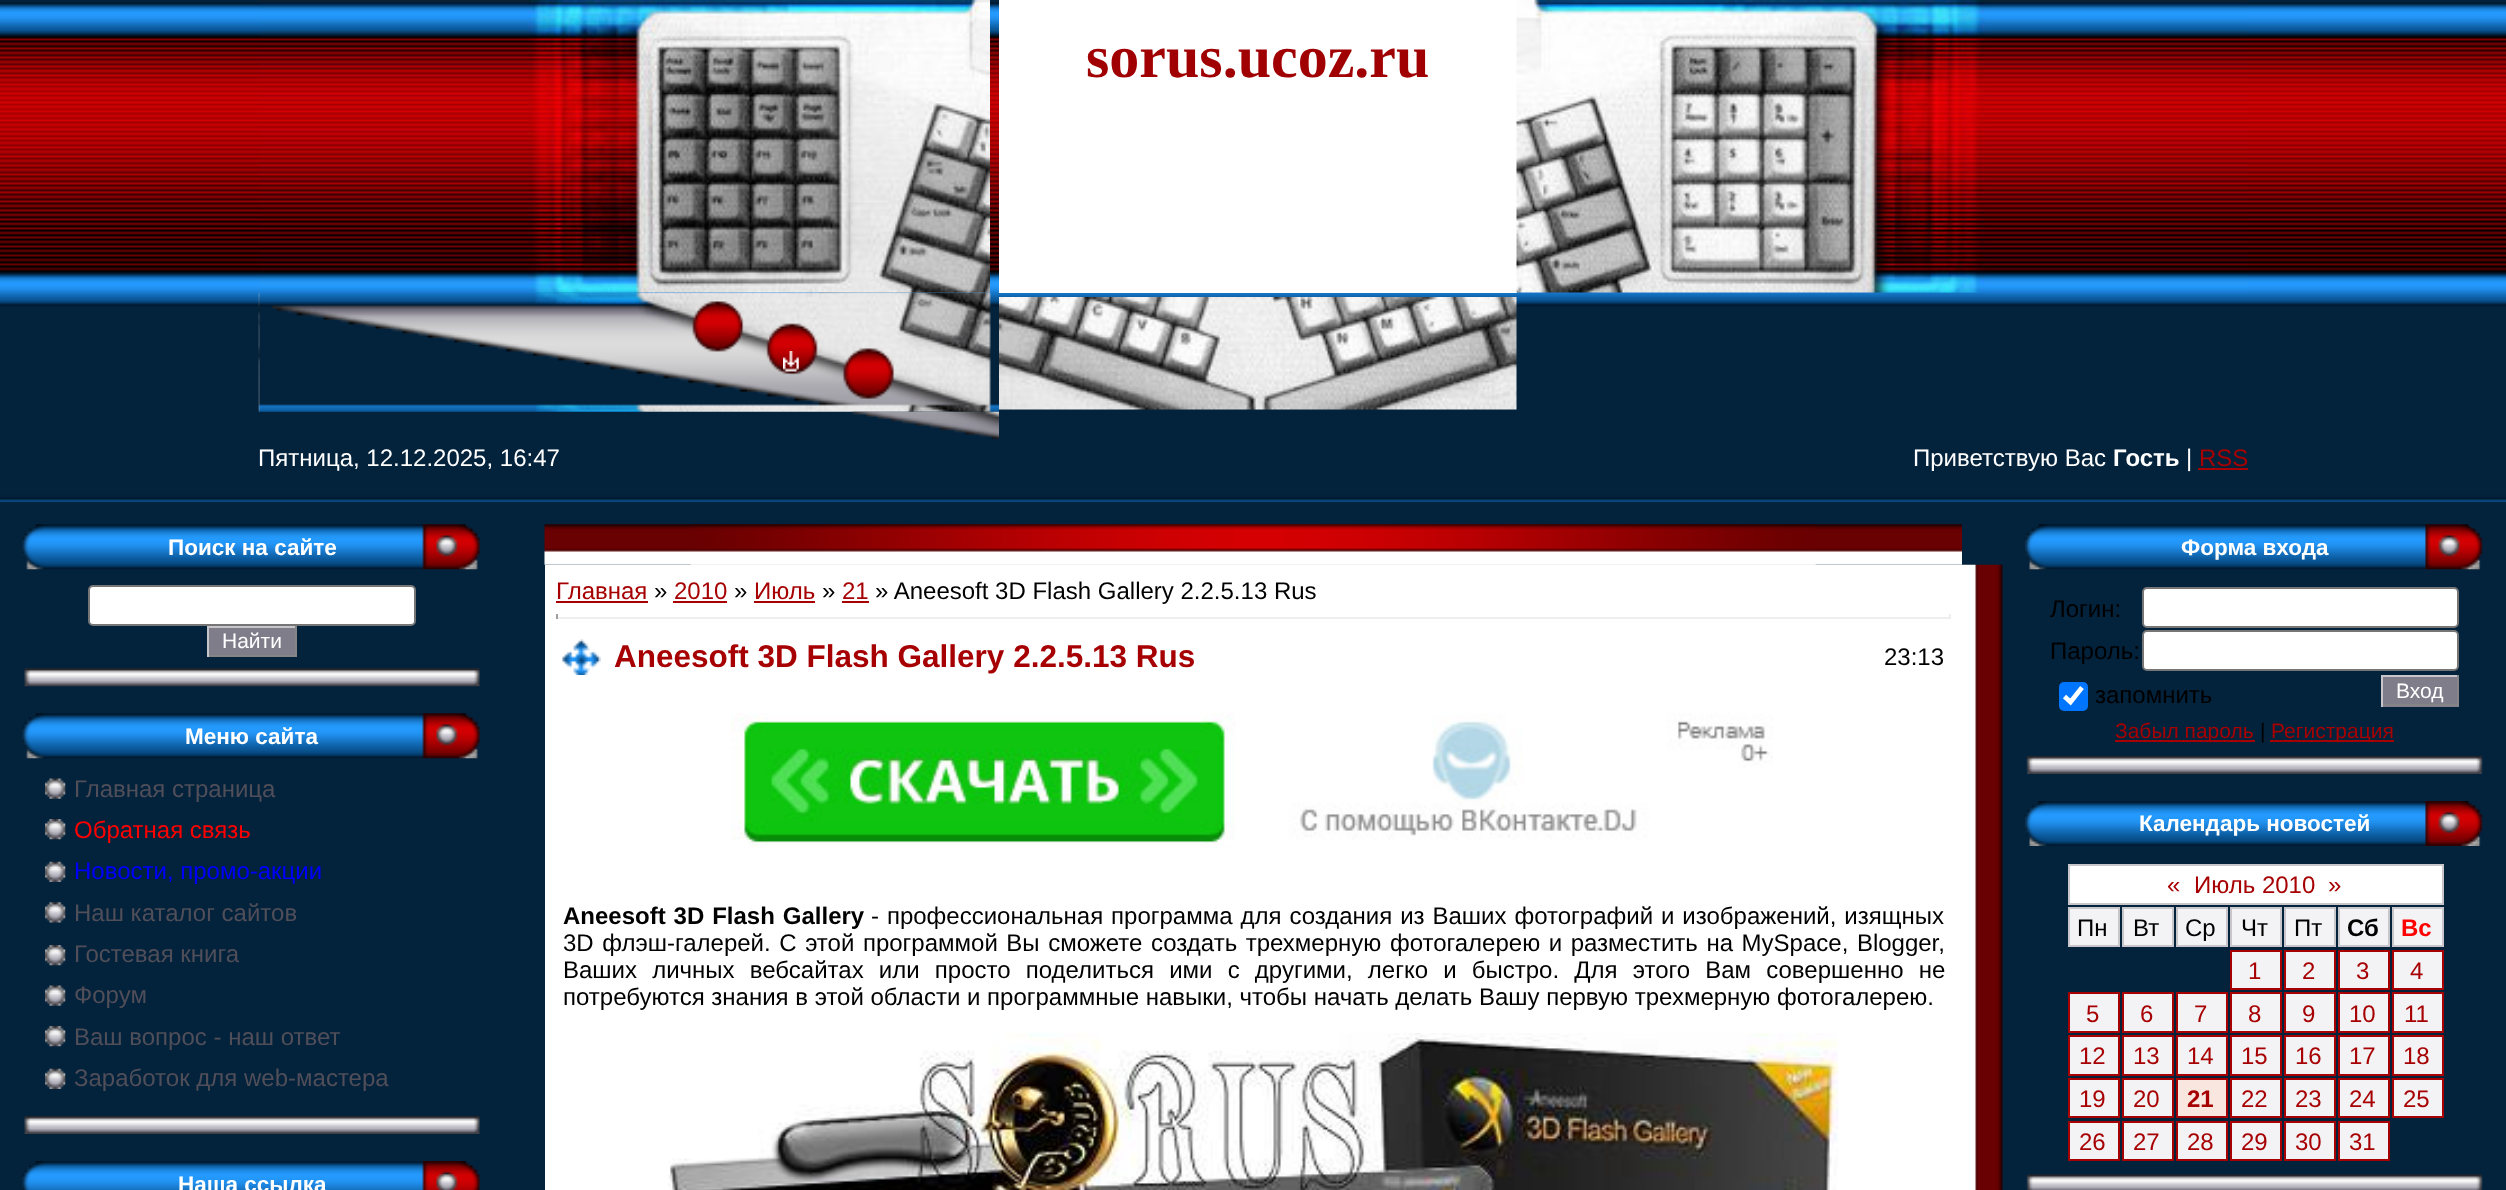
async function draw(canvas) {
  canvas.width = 2506;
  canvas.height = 1190;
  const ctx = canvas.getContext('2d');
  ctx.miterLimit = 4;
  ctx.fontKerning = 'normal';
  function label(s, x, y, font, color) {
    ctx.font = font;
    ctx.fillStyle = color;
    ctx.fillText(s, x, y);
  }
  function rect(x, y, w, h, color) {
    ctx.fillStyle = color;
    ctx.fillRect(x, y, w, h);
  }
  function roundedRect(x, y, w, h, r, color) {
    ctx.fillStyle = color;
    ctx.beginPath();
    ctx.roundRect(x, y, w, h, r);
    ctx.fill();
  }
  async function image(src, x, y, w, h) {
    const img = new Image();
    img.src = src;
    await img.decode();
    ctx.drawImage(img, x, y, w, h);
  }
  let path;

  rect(0, 0, 2506, 1190, '#03223c');
  await image('assets/img1.png', 0, 2, 2506, 500);
  await image('assets/img4.png', 258, 292, 741, 120);
  await image('assets/img2.png', 259, 0, 731, 293);
  rect(999, 0, 518, 293, '#fff');
  label('sorus.ucoz.ru', 1086, 77, 'bold 60px Liberation Serif', '#a10003');
  await image('assets/img3.png', 1516, 0, 732, 293);
  await image('assets/img5.png', 783, 351, 16, 21);
  await image('assets/img6.png', 999, 297, 518, 113);
  await image('assets/img7.png', 852, 411, 147, 29);
  label('Пятница, 12.12.2025, 16:47', 258, 466, '24px Liberation Sans', '#fff');
  label('Приветствую Вас', 1913, 466, '24px Liberation Sans', '#fff');
  label('Гость', 2113, 466, 'bold 24px Liberation Sans', '#fff');
  label('|', 2186, 466, '24px Liberation Sans', '#fff');
  label('RSS', 2199, 466, '24px Liberation Sans', '#a70003');
  rect(2198, 468, 50, 2, '#a70003');
  await image('assets/img8.png', 22, 524, 458, 46);
  label('Поиск на сайте', 168, 555, 'bold 22.5px Liberation Sans', '#fff');
  ctx.beginPath();
  ctx.roundRect(89, 586, 326, 39, 4);
  ctx.fill();
  ctx.strokeStyle = '#767676';
  ctx.lineWidth = 2;
  ctx.stroke();
  rect(209, 628, 86, 27, '#807d8a');
  rect(207, 626, 90, 2, '#c8c6cb');
  rect(295, 626, 2, 31, '#858487');
  rect(207, 655, 90, 2, '#858487');
  rect(207, 626, 2, 31, '#c8c6cb');
  label('Найти', 222, 648, '21px Liberation Sans', '#fff');
  await image('assets/img9.png', 24, 668, 456, 19);
  await image('assets/img8.png', 22, 713, 458, 46);
  label('Меню сайта', 185, 744, 'bold 22.5px Liberation Sans', '#fff');
  await image('assets/img10.png', 45, 778, 21, 21);
  label('Главная страница', 74, 797, '24px Liberation Sans', '#504e59');
  await image('assets/img11.png', 45, 819, 21, 21);
  label('Обратная связь', 74, 838, '24px Liberation Sans', '#f00');
  await image('assets/img12.png', 45, 861, 21, 21);
  label('Новости, промо-акции', 74, 879, '24px Liberation Sans', '#00f');
  await image('assets/img13.png', 45, 902, 21, 21);
  label('Наш каталог сайтов', 74, 921, '24px Liberation Sans', '#504e59');
  await image('assets/img11.png', 45, 945, 21, 21);
  label('Гостевая книга', 74, 962, '24px Liberation Sans', '#504e59');
  await image('assets/img14.png', 45, 985, 21, 21);
  label('Форум', 74, 1003, '24px Liberation Sans', '#504e59');
  await image('assets/img11.png', 45, 1026, 21, 21);
  label('Ваш вопрос - наш ответ', 74, 1045, '24px Liberation Sans', '#504e59');
  await image('assets/img12.png', 45, 1068, 21, 21);
  label('Заработок для web-мастера', 74, 1086, '24px Liberation Sans', '#504e59');
  await image('assets/img15.png', 24, 1116, 456, 18);
  await image('assets/img16.png', 22, 1161, 458, 29);
  label('Наша ссылка', 178, 1192, 'bold 22.5px Liberation Sans', '#fff');
  await image('assets/img17.png', 544, 524, 1418, 41);
  await image('assets/img18.png', 690, 524, 1126, 41);
  rect(545, 565, 1417, 625, '#fff');
  label('Главная', 556, 599, '24px Liberation Sans', '#a70003');
  rect(556, 601, 92, 2, '#a70003');
  label('»', 654, 599, '24px Liberation Sans', '#000');
  label('2010', 674, 599, '24px Liberation Sans', '#a70003');
  rect(673, 601, 54, 2, '#a70003');
  label('»', 734, 599, '24px Liberation Sans', '#000');
  label('Июль', 754, 599, '24px Liberation Sans', '#a70003');
  rect(754, 601, 61, 2, '#a70003');
  label('»', 822, 599, '24px Liberation Sans', '#000');
  label('21', 842, 599, '24px Liberation Sans', '#a70003');
  rect(842, 601, 27, 2, '#a70003');
  label('» Aneesoft 3D Flash Gallery 2.2.5.13 Rus', 875, 599, '24px Liberation Sans', '#000');
  rect(1949, 614, 2, 5, '#eee');
  rect(556, 617, 1395, 2, '#eee');
  rect(556, 614, 2, 5, '#9f9f9f');
  await image('assets/img19.png', 562, 639, 39, 36);
  label('Aneesoft 3D Flash Gallery 2.2.5.13 Rus', 614, 667, 'bold 31.5px Liberation Sans', '#a70003');
  label('23:13', 1884, 665, '24px Liberation Sans', '#000');
  await image('assets/img20.png', 731, 713, 1042, 135);
  ctx.wordSpacing = '1.25px';
  label('Aneesoft 3D Flash Gallery', 563, 924, 'bold 24px Liberation Sans', '#000');
  label('- профессиональная программа для создания из Ваших фотографий и изображений, изящных', 871, 924, '24px Liberation Sans', '#000');
  ctx.wordSpacing = '1.9px';
  label('3D флэш-галерей. С этой программой Вы сможете создать трехмерную фотогалерею и разместить на MySpace, Blogger,', 563, 951, '24px Liberation Sans', '#000');
  ctx.wordSpacing = '8.5px';
  label('Ваших личных вебсайтах или просто поделиться ими с другими, легко и быстро. Для этого Вам совершенно не', 563, 978, '24px Liberation Sans', '#000');
  ctx.wordSpacing = '0px';
  label('потребуются знания в этой области и программные навыки, чтобы начать делать Вашу первую трехмерную фотогалерею.', 563, 1005, '24px Liberation Sans', '#000');
  await image('assets/img21.png', 668, 1033, 1171, 157);
  await image('assets/img22.png', 1962, 564, 41, 626);
  await image('assets/img23.png', 2025, 524, 458, 46);
  label('Форма входа', 2181, 555, 'bold 22.5px Liberation Sans', '#fff');
  label('Логин:', 2050, 617, '24px Liberation Sans', '#000');
  ctx.fillStyle = '#fff';
  ctx.beginPath();
  ctx.roundRect(2143, 588, 315, 39, 4);
  ctx.fill();
  ctx.stroke();
  label('Пароль:', 2050, 659, '24px Liberation Sans', '#000');
  ctx.fillStyle = '#fff';
  ctx.beginPath();
  ctx.roundRect(2143, 631, 315, 39, 4);
  ctx.fill();
  ctx.stroke();
  roundedRect(2059, 682, 29, 29, 5, '#0075ff');
  path = new Path2D('M2064.5 696.5L2070.5 702L2082 687.5');
  ctx.strokeStyle = '#fff';
  ctx.lineWidth = 4.7;
  ctx.stroke(path);
  label('запомнить', 2095, 703, '24px Liberation Sans', '#000');
  rect(2383, 677, 74, 30, '#807d8a');
  rect(2381, 675, 78, 2, '#c8c6cb');
  rect(2457, 675, 2, 32, '#858487');
  rect(2381, 704, 78, 2, '#858487');
  rect(2381, 675, 2, 32, '#c8c6cb');
  label('Вход', 2396, 698, '21px Liberation Sans', '#fff');
  rect(2115, 740, 140, 2, '#a70003');
  label('Забыл пароль', 2115, 738, '21px Liberation Sans', '#a70003');
  label('|', 2260, 738, '21px Liberation Sans', '#000');
  rect(2270, 740, 124, 2, '#a70003');
  label('Регистрация', 2271, 738, '21px Liberation Sans', '#a70003');
  await image('assets/img24.png', 2026, 756, 457, 18);
  await image('assets/img25.png', 2025, 801, 458, 45);
  label('Календарь новостей', 2139, 831, 'bold 22.5px Liberation Sans', '#fff');
  ctx.beginPath();
  ctx.rect(2069, 865, 374, 39);
  ctx.fill();
  ctx.strokeStyle = '#c8c6cb';
  ctx.lineWidth = 2;
  ctx.stroke();
  label('«', 2167, 893, '24px Liberation Sans', '#a70003');
  label('Июль 2010', 2194, 893, '24px Liberation Sans', '#a70003');
  label('»', 2328, 893, '24px Liberation Sans', '#a70003');
  ctx.fillStyle = '#f3f2f4';
  ctx.beginPath();
  ctx.rect(2069, 908, 50, 38);
  ctx.fill();
  ctx.stroke();
  label('Пн', 2077, 936, '24px Liberation Sans', '#000');
  ctx.fillStyle = '#f3f2f4';
  ctx.beginPath();
  ctx.rect(2123, 908, 50, 38);
  ctx.fill();
  ctx.stroke();
  label('Вт', 2133, 936, '24px Liberation Sans', '#000');
  ctx.fillStyle = '#f3f2f4';
  ctx.beginPath();
  ctx.rect(2177, 908, 50, 38);
  ctx.fill();
  ctx.stroke();
  label('Ср', 2185, 936, '24px Liberation Sans', '#000');
  ctx.fillStyle = '#f3f2f4';
  ctx.beginPath();
  ctx.rect(2231, 908, 50, 38);
  ctx.fill();
  ctx.stroke();
  label('Чт', 2241, 936, '24px Liberation Sans', '#000');
  ctx.fillStyle = '#f3f2f4';
  ctx.beginPath();
  ctx.rect(2285, 908, 50, 38);
  ctx.fill();
  ctx.stroke();
  label('Пт', 2294, 936, '24px Liberation Sans', '#000');
  ctx.fillStyle = '#f3f2f4';
  ctx.beginPath();
  ctx.rect(2339, 908, 50, 38);
  ctx.fill();
  ctx.stroke();
  label('Сб', 2347, 936, 'bold 24px Liberation Sans', '#000');
  ctx.fillStyle = '#f3f2f4';
  ctx.beginPath();
  ctx.rect(2393, 908, 50, 38);
  ctx.fill();
  ctx.stroke();
  label('Вс', 2401, 936, 'bold 24px Liberation Sans', '#f00');
  ctx.fillStyle = '#f3f2f4';
  ctx.beginPath();
  ctx.rect(2231, 951, 50, 38);
  ctx.fill();
  ctx.strokeStyle = '#a70003';
  ctx.stroke();
  label('1', 2248, 979, '24px Liberation Sans', '#a70003');
  ctx.fillStyle = '#f3f2f4';
  ctx.beginPath();
  ctx.rect(2285, 951, 50, 38);
  ctx.fill();
  ctx.stroke();
  label('2', 2302, 979, '24px Liberation Sans', '#a70003');
  ctx.fillStyle = '#f3f2f4';
  ctx.beginPath();
  ctx.rect(2339, 951, 50, 38);
  ctx.fill();
  ctx.stroke();
  label('3', 2356, 979, '24px Liberation Sans', '#a70003');
  ctx.fillStyle = '#f3f2f4';
  ctx.beginPath();
  ctx.rect(2393, 951, 50, 38);
  ctx.fill();
  ctx.stroke();
  label('4', 2410, 979, '24px Liberation Sans', '#a70003');
  ctx.fillStyle = '#f3f2f4';
  ctx.beginPath();
  ctx.rect(2069, 993, 50, 39);
  ctx.fill();
  ctx.stroke();
  label('5', 2086, 1022, '24px Liberation Sans', '#a70003');
  ctx.fillStyle = '#f3f2f4';
  ctx.beginPath();
  ctx.rect(2123, 993, 50, 39);
  ctx.fill();
  ctx.stroke();
  label('6', 2140, 1022, '24px Liberation Sans', '#a70003');
  ctx.fillStyle = '#f3f2f4';
  ctx.beginPath();
  ctx.rect(2177, 993, 50, 39);
  ctx.fill();
  ctx.stroke();
  label('7', 2194, 1022, '24px Liberation Sans', '#a70003');
  ctx.fillStyle = '#f3f2f4';
  ctx.beginPath();
  ctx.rect(2231, 993, 50, 39);
  ctx.fill();
  ctx.stroke();
  label('8', 2248, 1022, '24px Liberation Sans', '#a70003');
  ctx.fillStyle = '#f3f2f4';
  ctx.beginPath();
  ctx.rect(2285, 993, 50, 39);
  ctx.fill();
  ctx.stroke();
  label('9', 2302, 1022, '24px Liberation Sans', '#a70003');
  ctx.fillStyle = '#f3f2f4';
  ctx.beginPath();
  ctx.rect(2339, 993, 50, 39);
  ctx.fill();
  ctx.stroke();
  label('10', 2349, 1022, '24px Liberation Sans', '#a70003');
  ctx.fillStyle = '#f3f2f4';
  ctx.beginPath();
  ctx.rect(2393, 993, 50, 39);
  ctx.fill();
  ctx.stroke();
  label('11', 2404, 1022, '24px Liberation Sans', '#a70003');
  ctx.fillStyle = '#f3f2f4';
  ctx.beginPath();
  ctx.rect(2069, 1036, 50, 39);
  ctx.fill();
  ctx.stroke();
  label('12', 2079, 1064, '24px Liberation Sans', '#a70003');
  ctx.fillStyle = '#f3f2f4';
  ctx.beginPath();
  ctx.rect(2123, 1036, 50, 39);
  ctx.fill();
  ctx.stroke();
  label('13', 2133, 1064, '24px Liberation Sans', '#a70003');
  ctx.fillStyle = '#f3f2f4';
  ctx.beginPath();
  ctx.rect(2177, 1036, 50, 39);
  ctx.fill();
  ctx.stroke();
  label('14', 2187, 1064, '24px Liberation Sans', '#a70003');
  ctx.fillStyle = '#f3f2f4';
  ctx.beginPath();
  ctx.rect(2231, 1036, 50, 39);
  ctx.fill();
  ctx.stroke();
  label('15', 2241, 1064, '24px Liberation Sans', '#a70003');
  ctx.fillStyle = '#f3f2f4';
  ctx.beginPath();
  ctx.rect(2285, 1036, 50, 39);
  ctx.fill();
  ctx.stroke();
  label('16', 2295, 1064, '24px Liberation Sans', '#a70003');
  ctx.fillStyle = '#f3f2f4';
  ctx.beginPath();
  ctx.rect(2339, 1036, 50, 39);
  ctx.fill();
  ctx.stroke();
  label('17', 2349, 1064, '24px Liberation Sans', '#a70003');
  ctx.fillStyle = '#f3f2f4';
  ctx.beginPath();
  ctx.rect(2393, 1036, 50, 39);
  ctx.fill();
  ctx.stroke();
  label('18', 2403, 1064, '24px Liberation Sans', '#a70003');
  ctx.fillStyle = '#f3f2f4';
  ctx.beginPath();
  ctx.rect(2069, 1079, 50, 38);
  ctx.fill();
  ctx.stroke();
  label('19', 2079, 1107, '24px Liberation Sans', '#a70003');
  ctx.fillStyle = '#f3f2f4';
  ctx.beginPath();
  ctx.rect(2123, 1079, 50, 38);
  ctx.fill();
  ctx.stroke();
  label('20', 2133, 1107, '24px Liberation Sans', '#a70003');
  ctx.fillStyle = '#f8e6df';
  ctx.beginPath();
  ctx.rect(2177, 1079, 50, 38);
  ctx.fill();
  ctx.stroke();
  label('21', 2187, 1107, 'bold 24px Liberation Sans', '#a70003');
  ctx.fillStyle = '#f3f2f4';
  ctx.beginPath();
  ctx.rect(2231, 1079, 50, 38);
  ctx.fill();
  ctx.stroke();
  label('22', 2241, 1107, '24px Liberation Sans', '#a70003');
  ctx.fillStyle = '#f3f2f4';
  ctx.beginPath();
  ctx.rect(2285, 1079, 50, 38);
  ctx.fill();
  ctx.stroke();
  label('23', 2295, 1107, '24px Liberation Sans', '#a70003');
  ctx.fillStyle = '#f3f2f4';
  ctx.beginPath();
  ctx.rect(2339, 1079, 50, 38);
  ctx.fill();
  ctx.stroke();
  label('24', 2349, 1107, '24px Liberation Sans', '#a70003');
  ctx.fillStyle = '#f3f2f4';
  ctx.beginPath();
  ctx.rect(2393, 1079, 50, 38);
  ctx.fill();
  ctx.stroke();
  label('25', 2403, 1107, '24px Liberation Sans', '#a70003');
  ctx.fillStyle = '#f3f2f4';
  ctx.beginPath();
  ctx.rect(2069, 1122, 50, 38);
  ctx.fill();
  ctx.stroke();
  label('26', 2079, 1150, '24px Liberation Sans', '#a70003');
  ctx.fillStyle = '#f3f2f4';
  ctx.beginPath();
  ctx.rect(2123, 1122, 50, 38);
  ctx.fill();
  ctx.stroke();
  label('27', 2133, 1150, '24px Liberation Sans', '#a70003');
  ctx.fillStyle = '#f3f2f4';
  ctx.beginPath();
  ctx.rect(2177, 1122, 50, 38);
  ctx.fill();
  ctx.stroke();
  label('28', 2187, 1150, '24px Liberation Sans', '#a70003');
  ctx.fillStyle = '#f3f2f4';
  ctx.beginPath();
  ctx.rect(2231, 1122, 50, 38);
  ctx.fill();
  ctx.stroke();
  label('29', 2241, 1150, '24px Liberation Sans', '#a70003');
  ctx.fillStyle = '#f3f2f4';
  ctx.beginPath();
  ctx.rect(2285, 1122, 50, 38);
  ctx.fill();
  ctx.stroke();
  label('30', 2295, 1150, '24px Liberation Sans', '#a70003');
  ctx.fillStyle = '#f3f2f4';
  ctx.beginPath();
  ctx.rect(2339, 1122, 50, 38);
  ctx.fill();
  ctx.stroke();
  label('31', 2349, 1150, '24px Liberation Sans', '#a70003');
  await image('assets/img26.png', 2026, 1174, 457, 16);
}

draw(document.querySelector('canvas'));
